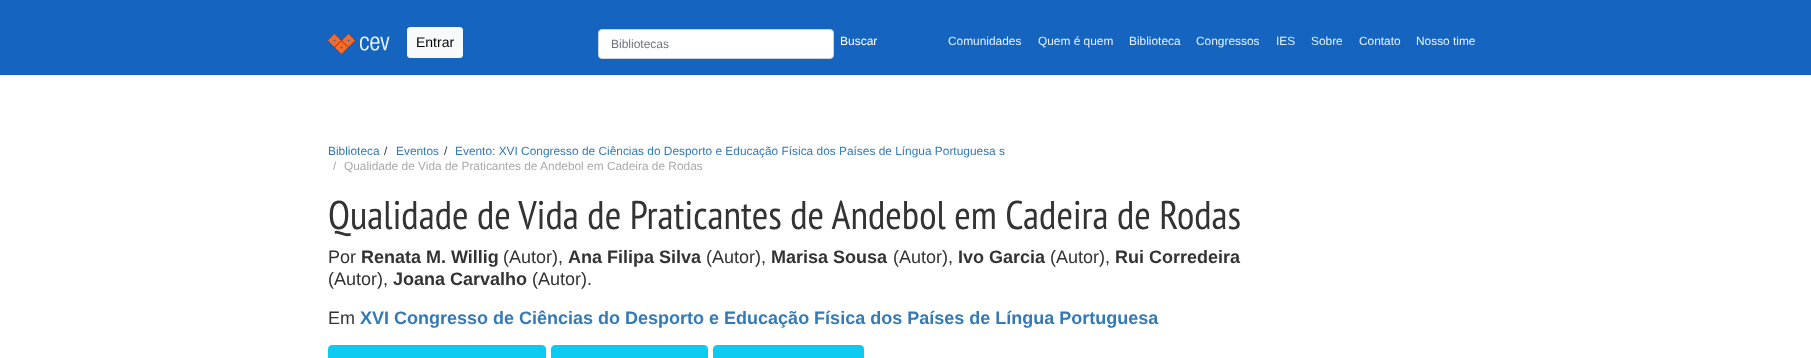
async function draw(canvas) {
  canvas.width = 1811;
  canvas.height = 358;
  const ctx = canvas.getContext('2d');
  ctx.miterLimit = 4;
  ctx.fontKerning = 'normal';
  function label(s, x, y, font, color) {
    ctx.font = font;
    ctx.fillStyle = color;
    ctx.fillText(s, x, y);
  }
  function rect(x, y, w, h, color) {
    ctx.fillStyle = color;
    ctx.fillRect(x, y, w, h);
  }
  async function image(src, x, y, w, h) {
    const img = new Image();
    img.src = src;
    await img.decode();
    ctx.drawImage(img, x, y, w, h);
  }

  rect(0, 0, 1811, 358, '#fff');
  rect(0, 0, 1811, 75, '#1565c0');
  await image('assets/img1.png', 328, 34, 62, 20);
  ctx.fillStyle = '#f8f9fa';
  ctx.beginPath();
  ctx.roundRect(407.5, 27.5, 55, 30, 2.5);
  ctx.fill();
  ctx.strokeStyle = '#f8f9fa';
  ctx.stroke();
  label('Entrar', 416, 47, '14px Liberation Sans', '#000');
  ctx.fillStyle = '#fff';
  ctx.beginPath();
  ctx.roundRect(598.5, 29.5, 235, 29, 3.5);
  ctx.fill();
  ctx.strokeStyle = '#ced4da';
  ctx.stroke();
  label('Bibliotecas', 611, 48, '12px Liberation Sans', '#6c757d');
  label('Buscar', 840, 45, '12px Liberation Sans', '#fff');
  label('Comunidades', 948, 45, '11.9px Liberation Sans', '#e3f2fd');
  label('Quem é quem', 1038, 45, '11.9px Liberation Sans', '#e3f2fd');
  label('Biblioteca', 1129, 45, '11.9px Liberation Sans', '#e3f2fd');
  label('Congressos', 1196, 45, '11.9px Liberation Sans', '#e3f2fd');
  label('IES', 1276, 45, '11.9px Liberation Sans', '#e3f2fd');
  label('Sobre', 1311, 45, '11.9px Liberation Sans', '#e3f2fd');
  label('Contato', 1359, 45, '11.9px Liberation Sans', '#e3f2fd');
  label('Nosso time', 1416, 45, '11.9px Liberation Sans', '#e3f2fd');
  label('Biblioteca', 328, 155, '11.9px Liberation Sans', '#337ab7');
  label('/', 384, 155, '11.9px Liberation Sans', '#333');
  label('Eventos', 396, 155, '11.9px Liberation Sans', '#337ab7');
  label('/', 444, 155, '11.9px Liberation Sans', '#333');
  label('Evento: XVI Congresso de Ciências do Desporto e Educação Física dos Países de Língua Portuguesa s', 455, 155, '11.9px Liberation Sans', '#337ab7');
  label('/', 333, 170, '11.9px Liberation Sans', '#aaa');
  label('Qualidade de Vida de Praticantes de Andebol em Cadeira de Rodas', 344, 170, '11.9px Liberation Sans', '#aaa');
  label('Qualidade de Vida de Praticantes de Andebol em Cadeira de Rodas', 328, 229, '40px PT Sans Narrow', '#333');
  label('Por', 328, 263, '18px Liberation Sans', '#333');
  label('Renata M. Willig', 361, 263, 'bold 18px Liberation Sans', '#333');
  label('(Autor),', 503, 263, '18px Liberation Sans', '#333');
  label('Ana Filipa Silva', 568, 263, 'bold 18px Liberation Sans', '#333');
  label('(Autor),', 706, 263, '18px Liberation Sans', '#333');
  label('Marisa Sousa', 771, 263, 'bold 18px Liberation Sans', '#333');
  label('(Autor),', 893, 263, '18px Liberation Sans', '#333');
  label('Ivo Garcia', 958, 263, 'bold 18px Liberation Sans', '#333');
  label('(Autor),', 1050, 263, '18px Liberation Sans', '#333');
  label('Rui Corredeira', 1115, 263, 'bold 18px Liberation Sans', '#333');
  label('(Autor),', 328, 285, '18px Liberation Sans', '#333');
  label('Joana Carvalho', 393, 285, 'bold 18px Liberation Sans', '#333');
  label('(Autor).', 532, 285, '18px Liberation Sans', '#333');
  label('Em', 328, 324, '18px Liberation Sans', '#333');
  label('XVI Congresso de Ciências do Desporto e Educação Física dos Países de Língua Portuguesa', 360, 324, 'bold 18px Liberation Sans', '#337ab7');
  ctx.fillStyle = '#0dcaf0';
  ctx.beginPath();
  ctx.roundRect(328.5, 345.5, 217, 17, 3.5);
  ctx.fill();
  ctx.strokeStyle = '#0dcaf0';
  ctx.stroke();
  ctx.beginPath();
  ctx.roundRect(551.5, 345.5, 156, 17, 3.5);
  ctx.fill();
  ctx.stroke();
  ctx.beginPath();
  ctx.roundRect(713.5, 345.5, 150, 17, 3.5);
  ctx.fill();
  ctx.stroke();
}

draw(document.querySelector('canvas'));
